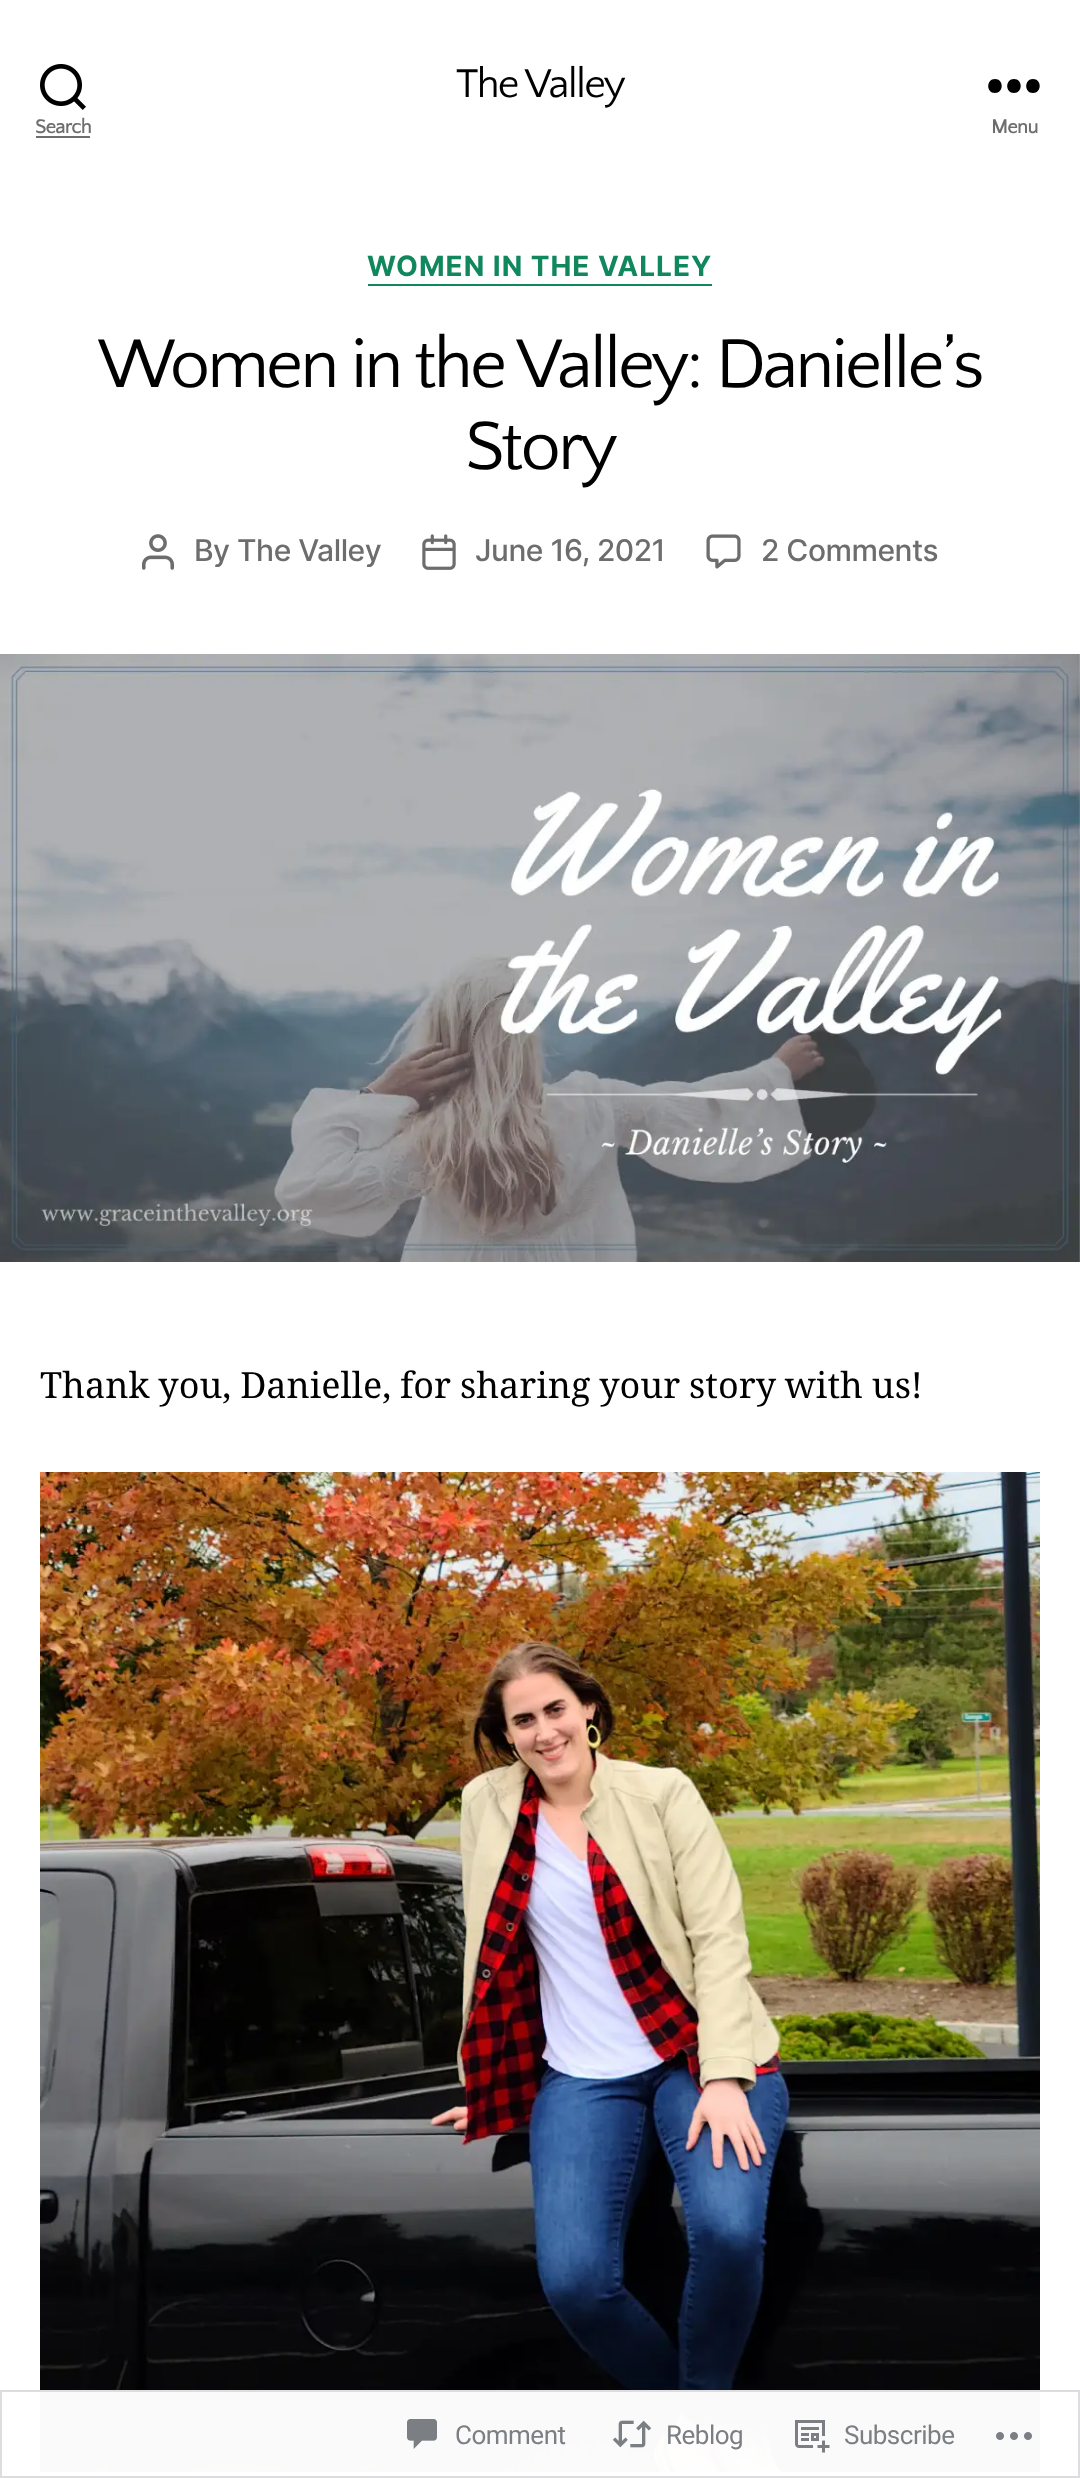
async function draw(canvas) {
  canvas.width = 1080;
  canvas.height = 2478;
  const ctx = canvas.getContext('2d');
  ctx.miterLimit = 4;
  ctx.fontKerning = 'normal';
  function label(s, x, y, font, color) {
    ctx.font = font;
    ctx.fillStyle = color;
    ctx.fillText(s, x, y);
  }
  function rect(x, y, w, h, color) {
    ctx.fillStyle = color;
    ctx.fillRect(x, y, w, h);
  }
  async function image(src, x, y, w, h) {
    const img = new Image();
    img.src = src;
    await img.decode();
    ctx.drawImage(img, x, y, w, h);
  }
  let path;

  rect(0, 0, 1080, 2478, '#fff');
  ctx.letterSpacing = '-1.75px';
  label('The Valley', 456, 97, '42px Quattrocento Sans', '#000');
  await image('assets/img1.png', 40, 64, 46, 46);
  ctx.letterSpacing = '-0.5px';
  label('Search', 35, 133, 'bold 20px Quattrocento Sans', '#6d6d6d');
  rect(36, 136, 54, 2, '#6d6d6d');
  ctx.fillStyle = '#000';
  path = new Path2D('M995 93C986 93 986 79 995 79C1004 79 1004 93 995 93ZM1014 93C1005 93 1005 79 1014 79C1023 79 1023 93 1014 93ZM1033 93C1024 93 1024 79 1033 79C1042 79 1042 93 1033 93Z');
  ctx.fill(path, 'evenodd');
  label('Menu', 991, 133, 'bold 20px Quattrocento Sans', '#6d6d6d');
  rect(368, 284, 344, 2, '#11875e');
  ctx.letterSpacing = '1px';
  label('WOMEN IN THE VALLEY', 367, 276, 'bold 28px Inter', '#11875e');
  ctx.letterSpacing = '-3px';
  label('Women in the Valley: Danielle’s', 98, 387, '72px Quattrocento Sans', '#000');
  label('Story', 465, 469, '72px Quattrocento Sans', '#000');
  await image('assets/img2.png', 142, 534, 32, 36);
  ctx.letterSpacing = '-0.5px';
  label('By The Valley', 194, 561, '500 30px Inter', '#6d6d6d');
  await image('assets/img3.png', 422, 534, 34, 36);
  label('June 16, 2021', 475, 561, '500 30px Inter', '#6d6d6d');
  await image('assets/img4.png', 706, 534, 35, 35);
  label('2 Comments', 761, 561, '500 30px Inter', '#6d6d6d');
  await image('assets/img5.png', 0, 654, 1080, 608);
  ctx.letterSpacing = '0px';
  ctx.wordSpacing = '-0.5px';
  label('Thank you, Danielle, for sharing your story with us!', 40, 1398, '36px Noto Serif', '#000');
  await image('assets/img6.png', 40, 1472, 1000, 1000);
  rect(40, 2390, 1000, 82, '#fffffffa');
  ctx.strokeStyle = '#dcdcdefa';
  ctx.lineWidth = 2;
  ctx.strokeRect(1, 2391, 1078, 86);
  await image('assets/img7.png', 407, 2419, 30, 30);
  ctx.letterSpacing = '-0.5px';
  ctx.wordSpacing = '0px';
  label('Comment', 455, 2444, '26px Roboto', '#7b7f84');
  await image('assets/img8.png', 612, 2420, 40, 28);
  label('Reblog', 666, 2444, '26px Roboto', '#7b7f84');
  await image('assets/img9.png', 795, 2420, 35, 33);
  label('Subscribe', 844, 2444, '26px Roboto', '#7b7f84');
  await image('assets/img10.png', 996, 2432, 36, 8);
}

draw(document.querySelector('canvas'));
